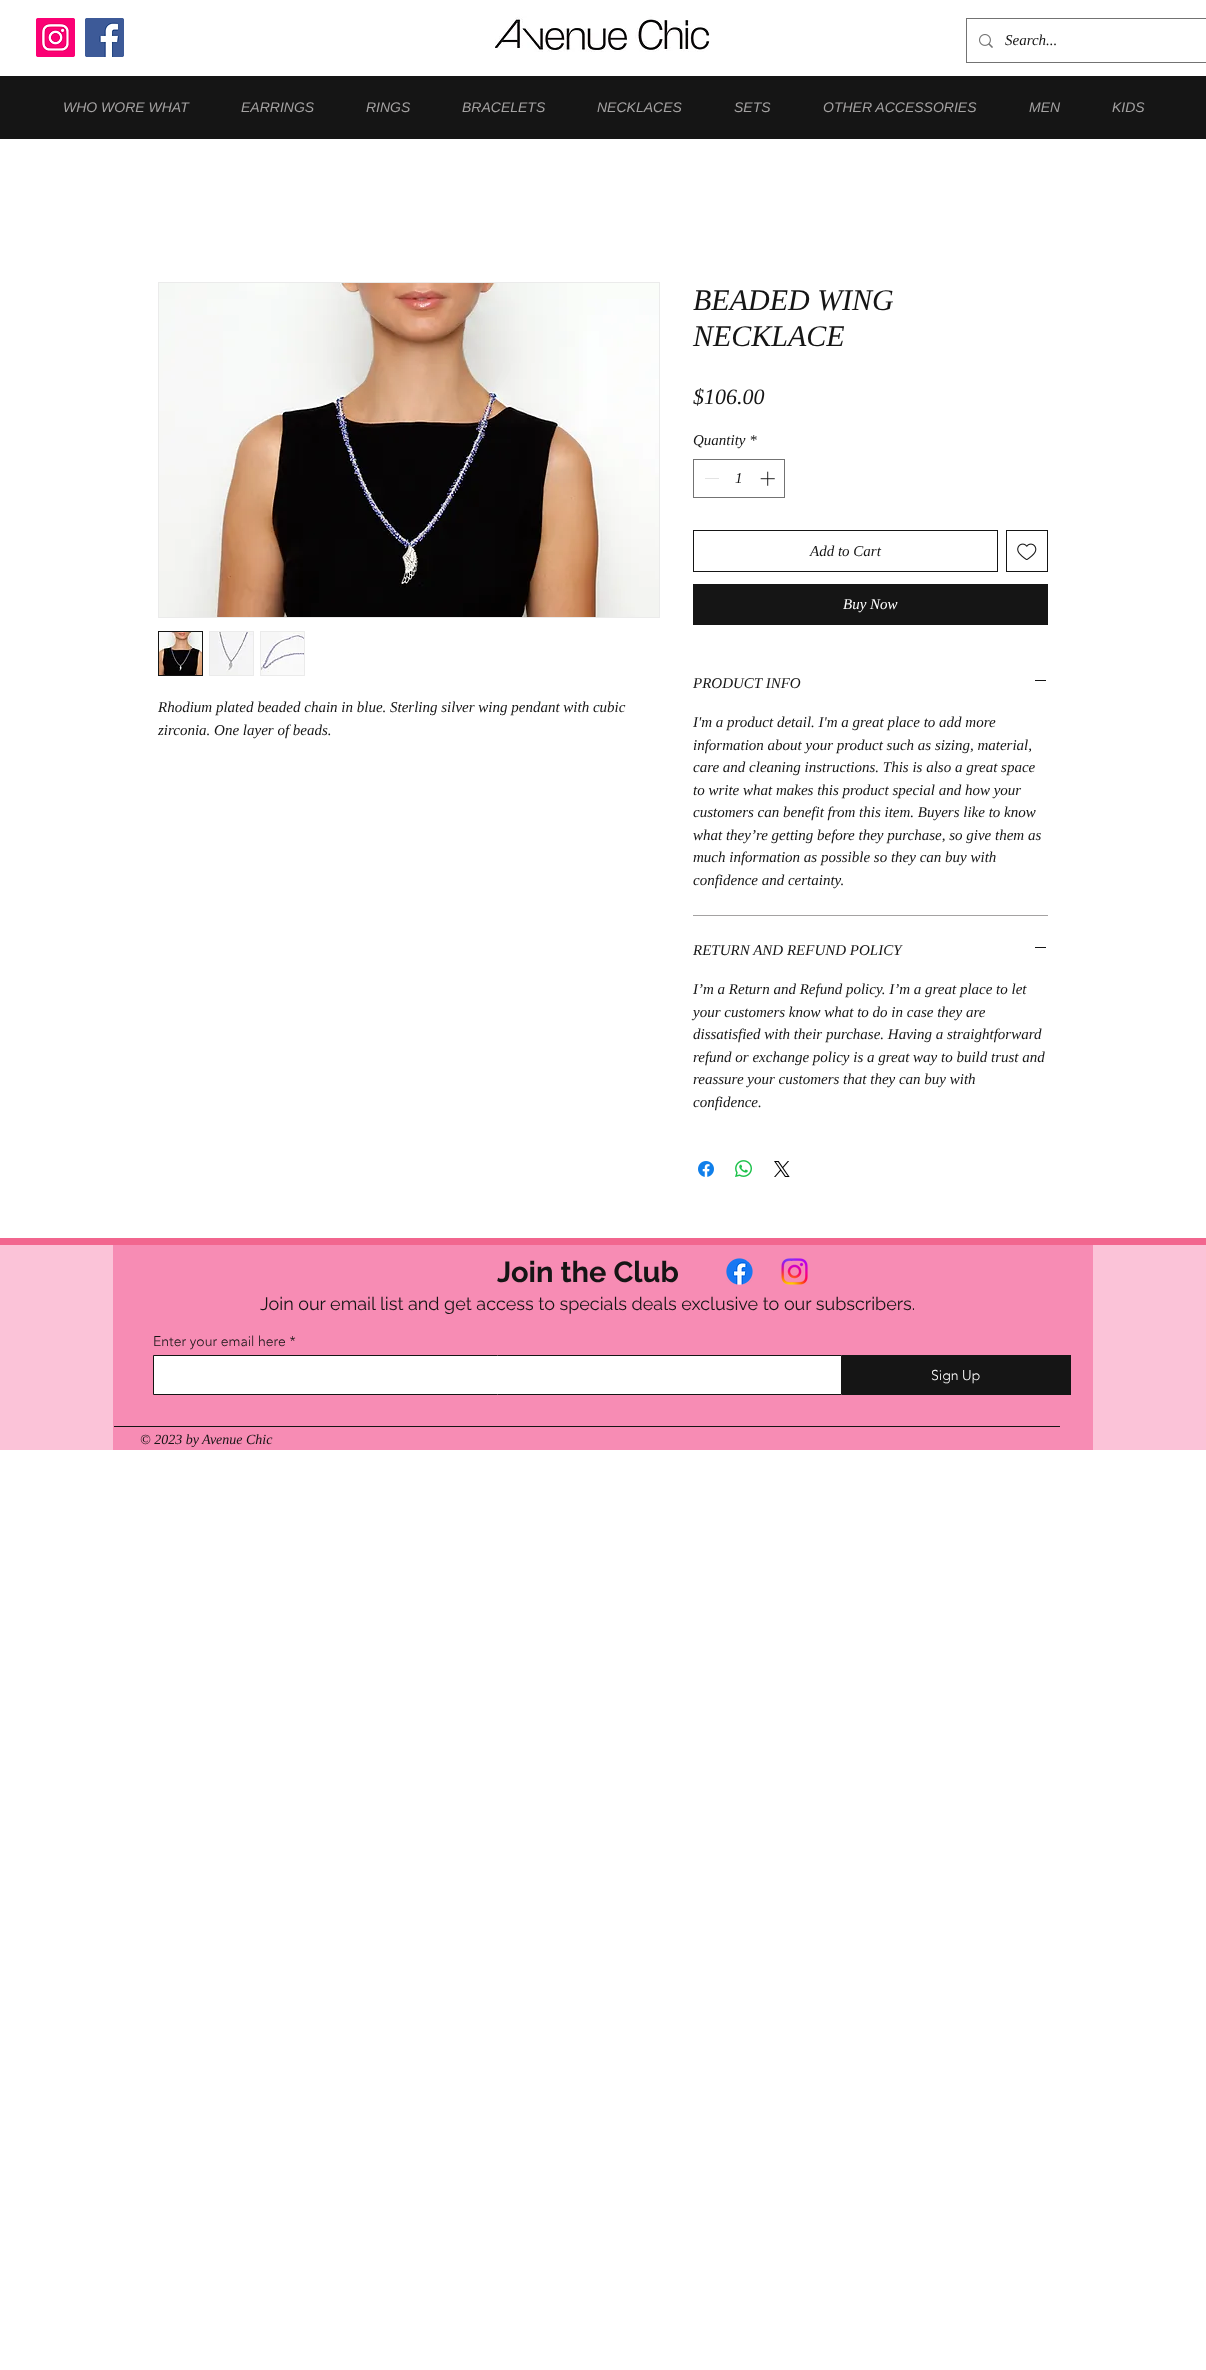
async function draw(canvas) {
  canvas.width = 1206;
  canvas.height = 2370;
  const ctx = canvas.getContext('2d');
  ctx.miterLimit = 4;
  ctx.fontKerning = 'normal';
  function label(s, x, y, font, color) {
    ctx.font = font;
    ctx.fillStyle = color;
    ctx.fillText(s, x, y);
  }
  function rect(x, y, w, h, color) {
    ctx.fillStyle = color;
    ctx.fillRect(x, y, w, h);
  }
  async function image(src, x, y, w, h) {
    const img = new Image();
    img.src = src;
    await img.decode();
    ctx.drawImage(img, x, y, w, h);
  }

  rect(0, 0, 1206, 2370, '#fff');
  await image('assets/img1.png', 36, 18, 39, 39);
  await image('assets/img2.png', 85, 18, 39, 39);
  await image('assets/img3.png', 495, 16, 215, 36);
  ctx.strokeStyle = '#737373';
  ctx.strokeRect(966.5, 18.5, 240, 44);
  await image('assets/img4.png', 979, 34, 14, 14);
  label('Search...', 1005, 45, 'italic 15px Liberation Serif', '#151515');
  rect(0, 76, 1206, 63, '#151515');
  label('WHO WORE WHAT', 63, 112, 'italic 14px Liberation Sans', '#a4a2a2');
  label('EARRINGS', 241, 112, 'italic 14px Liberation Sans', '#a4a2a2');
  label('RINGS', 366, 112, 'italic 14px Liberation Sans', '#a4a2a2');
  label('BRACELETS', 462, 112, 'italic 14px Liberation Sans', '#a4a2a2');
  label('NECKLACES', 597, 112, 'italic 14px Liberation Sans', '#a4a2a2');
  label('SETS', 734, 112, 'italic 14px Liberation Sans', '#a4a2a2');
  label('OTHER ACCESSORIES', 823, 112, 'italic 14px Liberation Sans', '#a4a2a2');
  label('MEN', 1029, 112, 'italic 14px Liberation Sans', '#a4a2a2');
  label('KIDS', 1112, 112, 'italic 14px Liberation Sans', '#a4a2a2');
  ctx.strokeStyle = '#ebebeb';
  ctx.strokeRect(158.5, 282.5, 501, 335);
  await image('assets/img5.png', 159, 283, 500, 334);
  ctx.strokeStyle = '#151515';
  ctx.strokeRect(158.5, 631.5, 44, 44);
  await image('assets/img6.png', 159, 632, 43, 43);
  ctx.strokeStyle = '#ebebeb';
  ctx.strokeRect(209.5, 631.5, 44, 44);
  await image('assets/img7.png', 210, 632, 43, 43);
  ctx.strokeRect(260.5, 631.5, 44, 44);
  await image('assets/img8.png', 261, 632, 43, 43);
  label('Rhodium plated beaded chain in blue. Sterling silver wing pendant with cubic', 158, 712, 'italic 15px Liberation Serif', '#151515');
  label('zirconia. One layer of beads.', 158, 735, 'italic 15px Liberation Serif', '#151515');
  label('BEADED WING', 693, 310, 'italic 30px Liberation Serif', '#151515');
  label('NECKLACE', 693, 346, 'italic 30px Liberation Serif', '#151515');
  label('$106.00', 693, 404, 'italic 22px Liberation Serif', '#151515');
  label('Quantity *', 693, 445, 'italic 15px Liberation Serif', '#151515');
  ctx.strokeStyle = '#737373';
  ctx.strokeRect(693.5, 459.5, 91, 38);
  rect(705, 478, 14, 1, '#e3e3e3');
  label('1', 735, 483, 'italic 15px Liberation Serif', '#151515');
  await image('assets/img9.png', 760, 471, 15, 15);
  ctx.strokeStyle = '#151515';
  ctx.strokeRect(693.5, 530.5, 304, 41);
  label('Add to Cart', 810, 556, 'italic 15px Liberation Serif', '#151515');
  ctx.strokeRect(1006.5, 530.5, 41, 41);
  await image('assets/img10.png', 1017, 543, 20, 17);
  rect(693, 584, 355, 41, '#151515');
  label('Buy Now', 843, 609, 'italic 15px Liberation Serif', '#fff');
  rect(693, 915, 355, 1, '#a4a2a2');
  label('PRODUCT INFO', 693, 688, 'italic 15px Liberation Serif', '#151515');
  rect(1035, 680, 11, 1, '#151515');
  label('I\'m a product detail. I\'m a great place to add more', 693, 727, 'italic 15px Liberation Serif', '#151515');
  label('information about your product such as sizing, material,', 693, 750, 'italic 15px Liberation Serif', '#151515');
  label('care and cleaning instructions. This is also a great space', 693, 772, 'italic 15px Liberation Serif', '#151515');
  label('to write what makes this product special and how your', 693, 795, 'italic 15px Liberation Serif', '#151515');
  label('customers can benefit from this item. Buyers like to know', 693, 817, 'italic 15px Liberation Serif', '#151515');
  label('what they’re getting before they purchase, so give them as', 693, 840, 'italic 15px Liberation Serif', '#151515');
  label('much information as possible so they can buy with', 693, 862, 'italic 15px Liberation Serif', '#151515');
  label('confidence and certainty.', 693, 885, 'italic 15px Liberation Serif', '#151515');
  label('RETURN AND REFUND POLICY', 693, 955, 'italic 15px Liberation Serif', '#151515');
  rect(1035, 947, 11, 1, '#151515');
  label('I’m a Return and Refund policy. I’m a great place to let', 693, 994, 'italic 15px Liberation Serif', '#151515');
  label('your customers know what to do in case they are', 693, 1017, 'italic 15px Liberation Serif', '#151515');
  label('dissatisfied with their purchase. Having a straightforward', 693, 1039, 'italic 15px Liberation Serif', '#151515');
  label('refund or exchange policy is a great way to build trust and', 693, 1062, 'italic 15px Liberation Serif', '#151515');
  label('reassure your customers that they can buy with', 693, 1084, 'italic 15px Liberation Serif', '#151515');
  label('confidence.', 693, 1107, 'italic 15px Liberation Serif', '#151515');
  await image('assets/img11.png', 698, 1161, 16, 16);
  await image('assets/img12.png', 735, 1160, 17, 17);
  await image('assets/img13.png', 774, 1161, 16, 16);
  rect(0, 1245, 1206, 205, '#fbc3d8');
  rect(0, 1238, 1206, 7, '#f2668f');
  rect(113, 1245, 980, 205, '#f78cb4');
  label('Join the Club', 497, 1282, 'bold 29px Raleway', '#151515');
  await image('assets/img14.png', 726, 1258, 27, 27);
  await image('assets/img15.png', 781, 1258, 27, 27);
  label('Join our email list and get access to specials deals exclusive to our subscribers.', 260, 1310, '18px Raleway', '#151515');
  label('Enter your email here *', 153, 1346, '300 14px "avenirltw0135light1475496"', '#151515');
  ctx.fillStyle = '#fff';
  ctx.beginPath();
  ctx.rect(153.5, 1355.5, 688, 39);
  ctx.fill();
  ctx.stroke();
  rect(842, 1355, 229, 40, '#151515');
  label('Sign Up', 931, 1380, '300 14px "avenirltw0135light1475496"', '#fff');
  rect(114, 1426, 946, 1, '#151515');
  label('© 2023 by Avenue Chic', 140, 1444, 'italic 14px Liberation Serif', '#151515');
}

draw(document.querySelector('canvas'));
